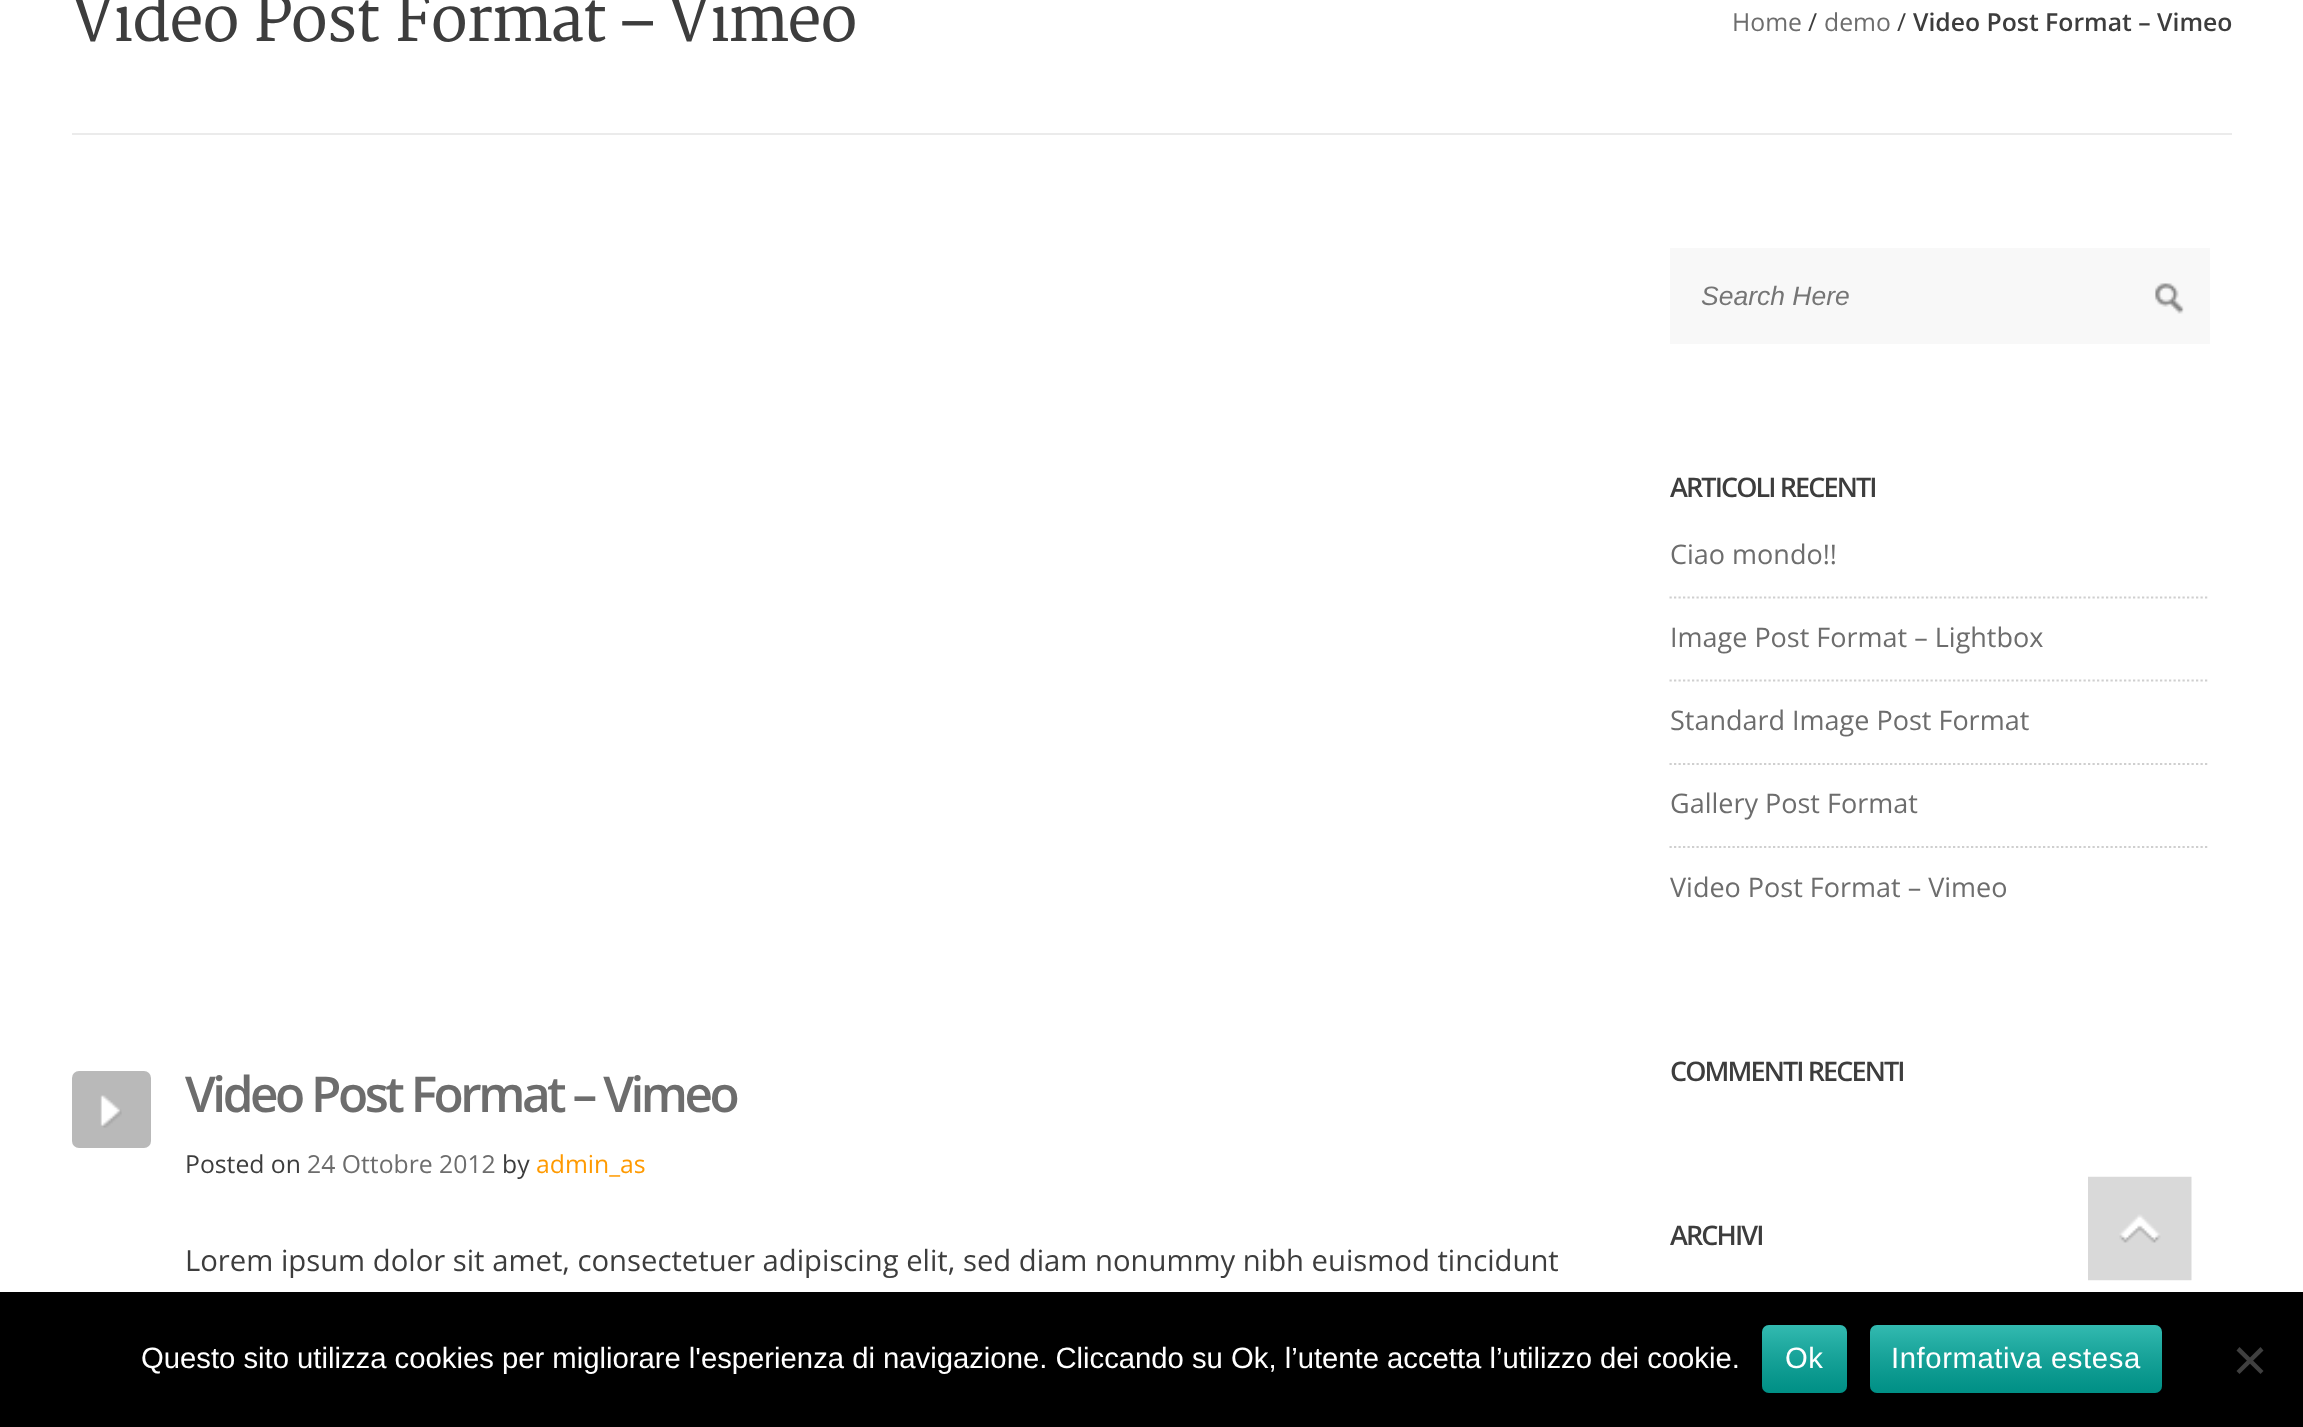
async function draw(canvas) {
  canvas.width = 2303;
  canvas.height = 1427;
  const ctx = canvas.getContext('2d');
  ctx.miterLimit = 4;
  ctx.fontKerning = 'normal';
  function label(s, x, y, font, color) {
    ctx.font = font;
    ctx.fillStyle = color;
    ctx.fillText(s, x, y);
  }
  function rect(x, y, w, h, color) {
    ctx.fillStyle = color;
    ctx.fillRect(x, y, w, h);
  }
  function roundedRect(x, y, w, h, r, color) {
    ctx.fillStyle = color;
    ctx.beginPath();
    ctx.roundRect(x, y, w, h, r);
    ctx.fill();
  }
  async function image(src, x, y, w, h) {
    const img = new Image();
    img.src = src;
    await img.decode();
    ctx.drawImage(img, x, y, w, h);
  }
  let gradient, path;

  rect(0, 0, 2303, 1427, '#fff');
  rect(72, 133, 2160, 2, '#ebebeb');
  label('Video Post Format – Vimeo', 72, 41, '61.5px Merriweather', '#3d3d3d');
  label('Home', 1732, 31, '24.75px Open Sans', '#6d6d6d');
  label('/', 1808, 31, '24.75px Open Sans', '#3d3d3d');
  label('demo', 1824, 31, '24.75px Open Sans', '#6d6d6d');
  label('/', 1897, 31, '24.75px Open Sans', '#3d3d3d');
  label('Video Post Format – Vimeo', 1913, 31, '600 24.75px Open Sans', '#3d3d3d');
  roundedRect(72, 1071, 79, 77, 7, '#b9b9b9');
  await image('assets/img1.png', 100, 1095, 22, 33);
  ctx.letterSpacing = '-3.5px';
  label('Video Post Format – Vimeo', 185, 1112, '600 49.5px Open Sans', '#6d6d6d');
  ctx.letterSpacing = '0px';
  label('Posted on', 185, 1173, '24.75px Open Sans', '#3d3d3d');
  label('24 Ottobre 2012', 307, 1173, '24.75px Open Sans', '#6d6d6d');
  label('by', 502, 1173, '24.75px Open Sans', '#3d3d3d');
  label('admin_as', 536, 1173, '24.75px Open Sans', '#ff9a00');
  label('Lorem ipsum dolor sit amet, consectetuer adipiscing elit, sed diam nonummy nibh euismod tincidunt', 185, 1271, '29.25px Open Sans', '#3d3d3d');
  rect(1670, 248, 540, 96, '#f8f8f8');
  label('Search Here', 1701, 305, 'italic 26.5px Liberation Sans', '#757575');
  await image('assets/img2.png', 2155, 283, 29, 31);
  ctx.letterSpacing = '-1.9px';
  label('ARTICOLI RECENTI', 1670, 497, '600 27px Open Sans', '#3d3d3d');
  path = new Path2D('M1669.5 597.5H2209.5');
  ctx.strokeStyle = '#cfcfcf';
  ctx.lineWidth = 2.2;
  ctx.setLineDash([2.25, 2.25]);
  ctx.stroke(path);
  ctx.letterSpacing = '0px';
  label('Ciao mondo!!', 1670, 564, '27px Open Sans', '#6d6d6d');
  path = new Path2D('M1669.5 680.5H2209.5');
  ctx.stroke(path);
  label('Image Post Format – Lightbox', 1670, 647, '27px Open Sans', '#6d6d6d');
  path = new Path2D('M1669.5 764H2209.5');
  ctx.stroke(path);
  label('Standard Image Post Format', 1670, 730, '27px Open Sans', '#6d6d6d');
  path = new Path2D('M1669.5 847H2209.5');
  ctx.stroke(path);
  label('Gallery Post Format', 1670, 813, '27px Open Sans', '#6d6d6d');
  label('Video Post Format – Vimeo', 1670, 897, '27px Open Sans', '#6d6d6d');
  ctx.letterSpacing = '-1.9px';
  label('COMMENTI RECENTI', 1670, 1081, '600 27px Open Sans', '#3d3d3d');
  label('ARCHIVI', 1670, 1245, '600 27px Open Sans', '#3d3d3d');
  await image('assets/img3.png', 2088, 1176, 104, 105);
  rect(0, 1292, 2303, 135, '#000');
  ctx.letterSpacing = '0px';
  label('Questo sito utilizza cookies per migliorare l\'esperienza di navigazione. Cliccando su Ok, l’utente accetta l’utilizzo dei cookie.', 141, 1368, '29.25px Liberation Sans', '#fff');
  roundedRect(1762, 1325, 85, 68, 7, '#00a99d');
  gradient = ctx.createLinearGradient(1805, 1325, 1805, 1393);
  gradient.addColorStop(0, '#ffffff33');
  gradient.addColorStop(1, '#00000026');
  ctx.fillStyle = gradient;
  ctx.beginPath();
  ctx.roundRect(1762, 1325, 85, 68, 7);
  ctx.fill();
  ctx.letterSpacing = '0.6px';
  label('Ok', 1785, 1368, '29.25px Liberation Sans', '#fff');
  roundedRect(1870, 1325, 292, 68, 7, '#00a99d');
  gradient = ctx.createLinearGradient(2016, 1325, 2016, 1393);
  gradient.addColorStop(0, '#ffffff33');
  gradient.addColorStop(1, '#00000026');
  ctx.fillStyle = gradient;
  ctx.beginPath();
  ctx.roundRect(1870, 1325, 292, 68, 7);
  ctx.fill();
  label('Informativa estesa', 1891, 1368, '29.25px Liberation Sans', '#fff');
  ctx.fillStyle = '#404040';
  path = new Path2D('M2260.5 1347L2263.5 1350.5L2239.5 1374L2236.5 1371Z');
  ctx.fill(path);
  path = new Path2D('M2236.5 1350.5L2239.5 1347L2263.5 1371L2260.5 1374Z');
  ctx.fill(path);
}

draw(document.querySelector('canvas'));
